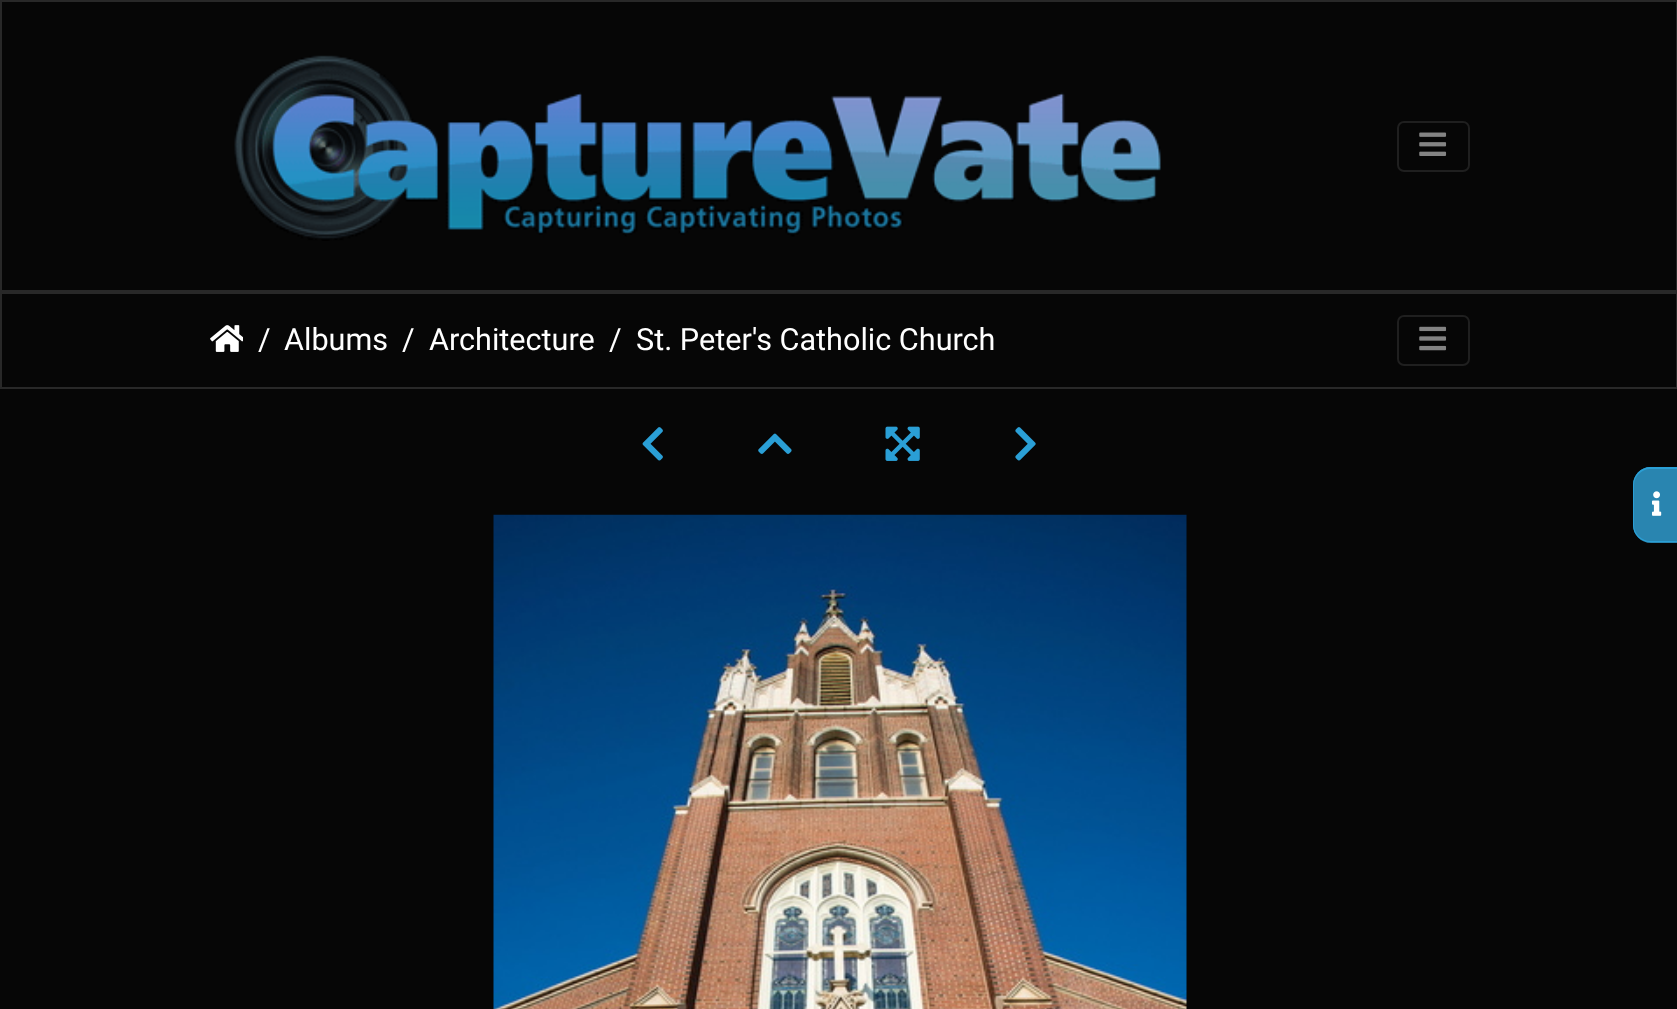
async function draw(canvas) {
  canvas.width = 1677;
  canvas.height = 1009;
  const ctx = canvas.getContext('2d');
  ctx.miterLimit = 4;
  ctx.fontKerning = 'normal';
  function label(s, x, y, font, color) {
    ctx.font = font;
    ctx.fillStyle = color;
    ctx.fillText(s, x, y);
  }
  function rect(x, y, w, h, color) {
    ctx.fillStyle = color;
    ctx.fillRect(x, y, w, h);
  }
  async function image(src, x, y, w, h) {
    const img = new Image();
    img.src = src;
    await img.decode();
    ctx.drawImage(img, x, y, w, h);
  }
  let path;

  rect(0, 0, 1677, 1009, '#060606');
  ctx.strokeStyle = '#282828';
  ctx.lineWidth = 2;
  ctx.strokeRect(1, 1, 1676, 290);
  await image('assets/img1.png', 234, 55, 927, 186);
  ctx.beginPath();
  ctx.roundRect(1398, 122, 71, 49, 6);
  ctx.strokeStyle = '#1f1f1f';
  ctx.stroke();
  await image('assets/img2.png', 1419, 132, 28, 24);
  ctx.strokeStyle = '#282828';
  ctx.strokeRect(1, 293, 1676, 95);
  await image('assets/img3.png', 210, 325, 33, 27);
  label('/', 258, 350, '30.6px Roboto', '#fff');
  label('Albums', 284, 350, '30.6px Roboto', '#fff');
  label('/', 402, 350, '30.6px Roboto', '#fff');
  label('Architecture', 429, 350, '30.6px Roboto', '#fff');
  label('/', 609, 350, '30.6px Roboto', '#fff');
  label('St. Peter\'s Catholic Church', 636, 350, '30.6px Roboto', '#fff');
  ctx.beginPath();
  ctx.roundRect(1398, 316, 71, 49, 6);
  ctx.strokeStyle = '#1f1f1f';
  ctx.stroke();
  await image('assets/img4.png', 1419, 326, 28, 25);
  await image('assets/img5.png', 642, 427, 21, 34);
  await image('assets/img6.png', 758, 433, 34, 21);
  await image('assets/img7.png', 885, 426, 35, 35);
  await image('assets/img8.png', 1015, 427, 21, 34);
  ctx.fillStyle = '#2985b0';
  path = new Path2D('M1651 467H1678V543H1651C1641 543 1633 535 1633 525V485C1633 475 1641 467 1651 467Z');
  ctx.fill(path);
  ctx.fillStyle = '#2a9fd6';
  path = new Path2D('M1650 467H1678V542H1650C1641 542 1633 535 1633 525V485C1633 475 1641 467 1650 467ZM1650 469H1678V541H1650C1642 541 1634 534 1634 525V485C1634 476 1642 469 1650 469Z');
  ctx.fill(path, 'evenodd');
  await image('assets/img9.png', 1652, 491, 10, 25);
  await image('assets/img10.png', 493, 514, 694, 495);
}

draw(document.querySelector('canvas'));
